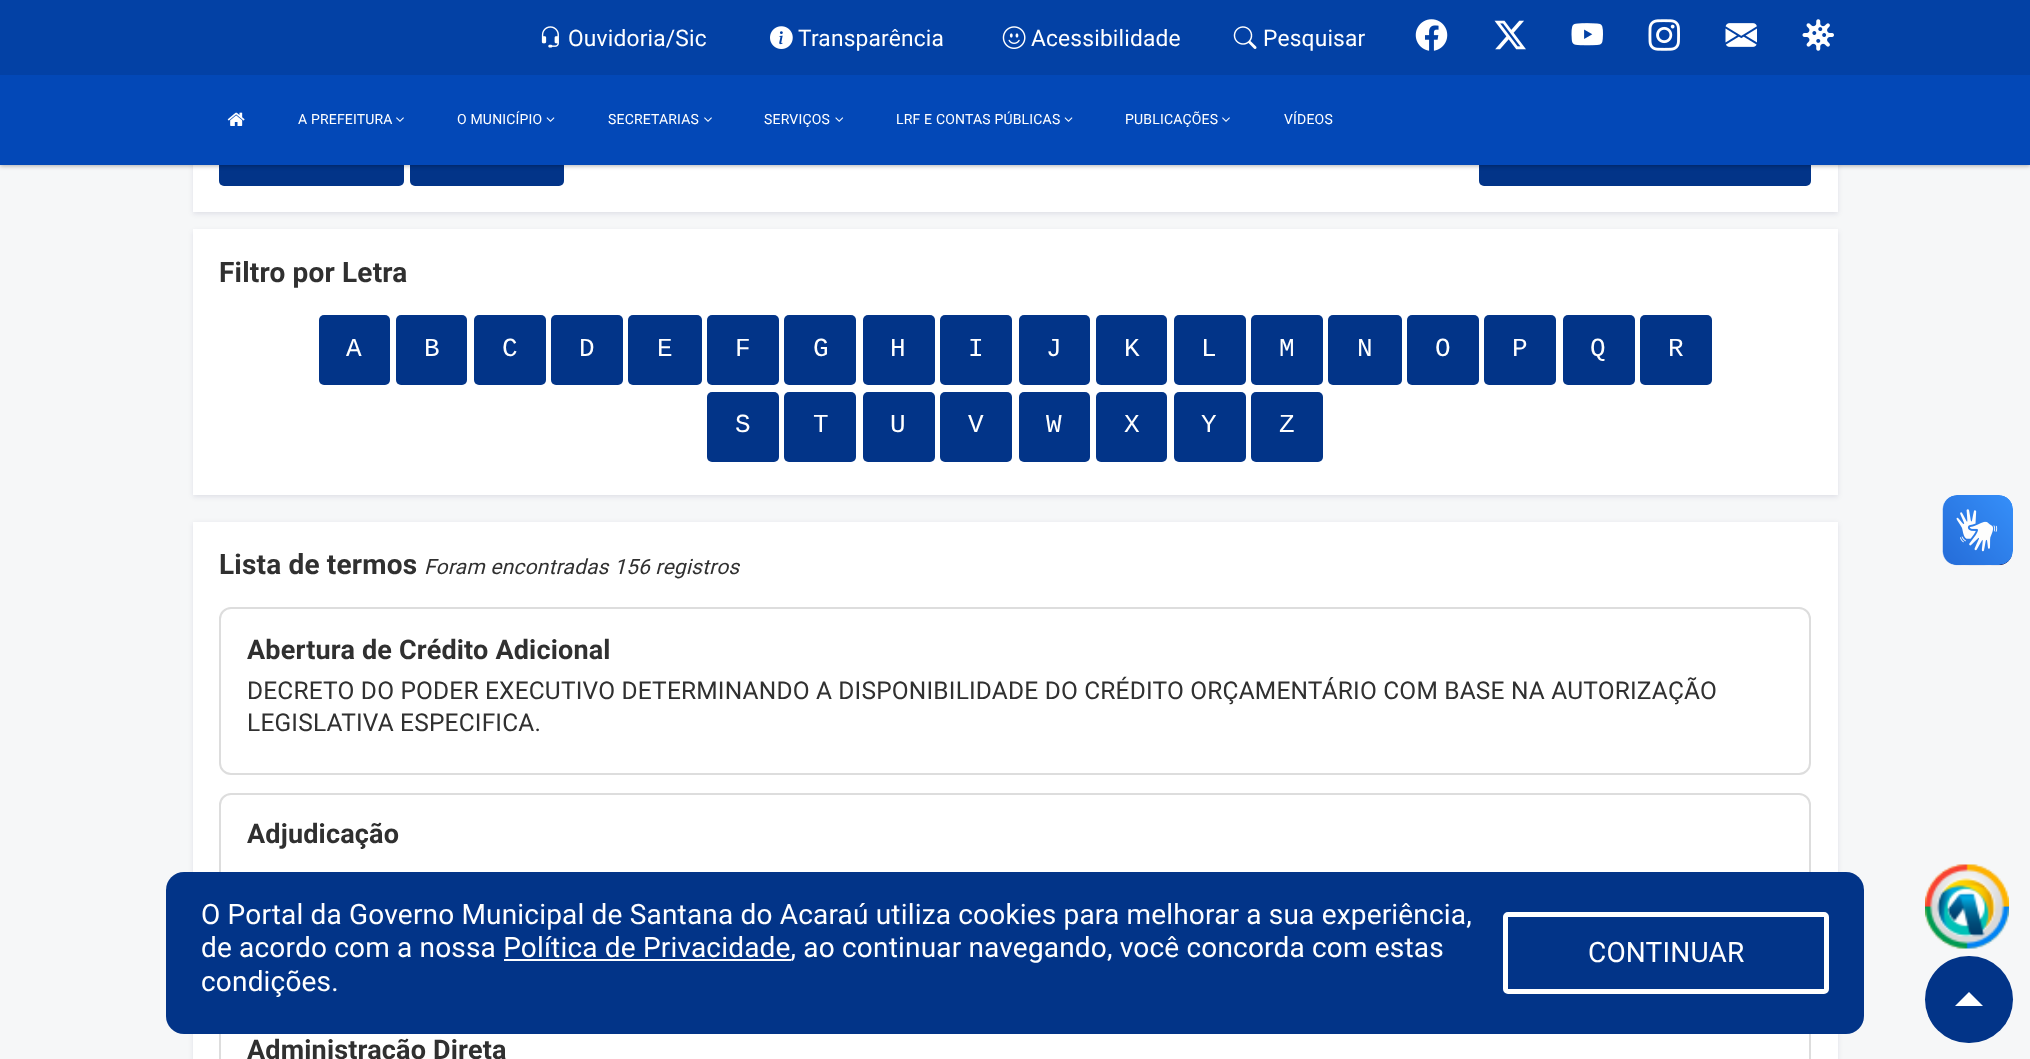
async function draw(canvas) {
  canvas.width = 2030;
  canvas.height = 1059;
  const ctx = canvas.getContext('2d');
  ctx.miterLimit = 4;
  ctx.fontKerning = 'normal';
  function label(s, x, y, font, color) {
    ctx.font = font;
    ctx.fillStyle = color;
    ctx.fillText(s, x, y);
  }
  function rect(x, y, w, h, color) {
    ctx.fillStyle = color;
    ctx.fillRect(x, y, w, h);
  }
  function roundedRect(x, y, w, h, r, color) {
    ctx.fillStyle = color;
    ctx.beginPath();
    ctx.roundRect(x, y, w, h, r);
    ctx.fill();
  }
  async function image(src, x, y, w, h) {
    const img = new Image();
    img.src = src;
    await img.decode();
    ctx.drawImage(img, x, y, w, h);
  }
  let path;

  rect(0, 0, 2030, 1059, '#f6f7f8');
  ctx.fillStyle = '#03004717';
  ctx.filter = 'blur(2.5px)';
  ctx.beginPath();
  ctx.rect(193, -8, 1645, 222);
  ctx.fill();
  ctx.filter = 'none';
  rect(193, 165, 1645, 47, '#fff');
  roundedRect(219, 123, 185, 63, 5, '#023488');
  roundedRect(410, 123, 154, 63, 5, '#023488');
  roundedRect(1479, 123, 332, 63, 5, '#023488');
  ctx.fillStyle = '#0000004d';
  ctx.filter = 'blur(2px)';
  ctx.beginPath();
  ctx.rect(0, 2, 2030, 164);
  ctx.fill();
  ctx.filter = 'none';
  rect(0, 0, 2030, 75, '#0341a5');
  await image('assets/img1.png', 541, 26, 18, 22);
  ctx.letterSpacing = '0.18px';
  label('Ouvidoria/Sic', 568, 46, '22.75px Roboto', '#fff');
  await image('assets/img2.png', 770, 26, 23, 23);
  label('Transparência', 798, 46, '22.75px Roboto', '#fff');
  await image('assets/img3.png', 1002, 26, 24, 23);
  label('Acessibilidade', 1031, 46, '22.75px Roboto', '#fff');
  await image('assets/img4.png', 1233, 26, 24, 23);
  label('Pesquisar', 1263, 46, '22.75px Roboto', '#fff');
  await image('assets/img5.png', 1415, 19, 33, 32);
  await image('assets/img6.png', 1494, 20, 32, 30);
  await image('assets/img7.png', 1571, 23, 32, 23);
  await image('assets/img8.png', 1648, 19, 32, 32);
  await image('assets/img9.png', 1725, 23, 32, 24);
  await image('assets/img10.png', 1802, 19, 32, 32);
  rect(0, 75, 2030, 90, '#0348b7');
  await image('assets/img11.png', 227, 112, 18, 14);
  label('A PREFEITURA', 298, 124, '14px Roboto', '#fff');
  await image('assets/img12.png', 396, 117, 8, 5);
  label('O MUNICÍPIO', 457, 124, '14px Roboto', '#fff');
  await image('assets/img13.png', 546, 117, 9, 5);
  label('SECRETARIAS', 608, 124, '14px Roboto', '#fff');
  await image('assets/img12.png', 704, 117, 8, 5);
  label('SERVIÇOS', 764, 124, '14px Roboto', '#fff');
  await image('assets/img14.png', 835, 117, 9, 5);
  label('LRF E CONTAS PÚBLICAS', 896, 124, '14px Roboto', '#fff');
  await image('assets/img13.png', 1064, 117, 9, 5);
  label('PUBLICAÇÕES', 1125, 124, '14px Roboto', '#fff');
  await image('assets/img12.png', 1222, 117, 8, 5);
  label('VÍDEOS', 1284, 124, '14px Roboto', '#fff');
  ctx.fillStyle = '#03004717';
  ctx.filter = 'blur(2.5px)';
  ctx.beginPath();
  ctx.rect(193, 231, 1645, 266);
  ctx.fill();
  ctx.filter = 'none';
  rect(193, 229, 1645, 266, '#fff');
  label('Filtro por Letra', 219, 282, 'bold 28px Roboto', '#303030');
  roundedRect(319, 315, 71, 70, 5, '#023488');
  label('A', 346, 356, '26px Liberation Mono', '#fff');
  roundedRect(396, 315, 71, 70, 5, '#023488');
  label('B', 424, 356, '26px Liberation Mono', '#fff');
  roundedRect(474, 315, 72, 70, 5, '#023488');
  label('C', 502, 356, '26px Liberation Mono', '#fff');
  roundedRect(551, 315, 72, 70, 5, '#023488');
  label('D', 579, 356, '26px Liberation Mono', '#fff');
  roundedRect(628, 315, 74, 70, 5, '#023488');
  label('E', 657, 356, '26px Liberation Mono', '#fff');
  roundedRect(707, 315, 72, 70, 5, '#023488');
  label('F', 735, 356, '26px Liberation Mono', '#fff');
  roundedRect(784, 315, 72, 70, 5, '#023488');
  label('G', 813, 356, '26px Liberation Mono', '#fff');
  roundedRect(863, 315, 72, 70, 5, '#023488');
  label('H', 890, 356, '26px Liberation Mono', '#fff');
  roundedRect(940, 315, 72, 70, 5, '#023488');
  label('I', 968, 356, '26px Liberation Mono', '#fff');
  roundedRect(1019, 315, 71, 70, 5, '#023488');
  label('J', 1046, 356, '26px Liberation Mono', '#fff');
  roundedRect(1096, 315, 71, 70, 5, '#023488');
  label('K', 1124, 356, '26px Liberation Mono', '#fff');
  roundedRect(1174, 315, 72, 70, 5, '#023488');
  label('L', 1201, 356, '26px Liberation Mono', '#fff');
  roundedRect(1251, 315, 72, 70, 5, '#023488');
  label('M', 1279, 356, '26px Liberation Mono', '#fff');
  roundedRect(1328, 315, 74, 70, 5, '#023488');
  label('N', 1357, 356, '26px Liberation Mono', '#fff');
  roundedRect(1407, 315, 72, 70, 5, '#023488');
  label('O', 1435, 356, '26px Liberation Mono', '#fff');
  roundedRect(1484, 315, 72, 70, 5, '#023488');
  label('P', 1512, 356, '26px Liberation Mono', '#fff');
  roundedRect(1563, 315, 72, 70, 5, '#023488');
  label('Q', 1590, 356, '26px Liberation Mono', '#fff');
  roundedRect(1640, 315, 72, 70, 5, '#023488');
  label('R', 1668, 356, '26px Liberation Mono', '#fff');
  roundedRect(707, 392, 72, 70, 5, '#023488');
  label('S', 735, 432, '26px Liberation Mono', '#fff');
  roundedRect(784, 392, 72, 70, 5, '#023488');
  label('T', 813, 432, '26px Liberation Mono', '#fff');
  roundedRect(863, 392, 72, 70, 5, '#023488');
  label('U', 890, 432, '26px Liberation Mono', '#fff');
  roundedRect(940, 392, 72, 70, 5, '#023488');
  label('V', 968, 432, '26px Liberation Mono', '#fff');
  roundedRect(1019, 392, 71, 70, 5, '#023488');
  label('W', 1046, 432, '26px Liberation Mono', '#fff');
  roundedRect(1096, 392, 71, 70, 5, '#023488');
  label('X', 1124, 432, '26px Liberation Mono', '#fff');
  roundedRect(1174, 392, 72, 70, 5, '#023488');
  label('Y', 1201, 432, '26px Liberation Mono', '#fff');
  roundedRect(1251, 392, 72, 70, 5, '#023488');
  label('Z', 1279, 432, '26px Liberation Mono', '#fff');
  await image('assets/img15.png', 1942, 495, 71, 71);
  await image('assets/img16.png', 1943, 495, 70, 70);
  ctx.fillStyle = '#03004717';
  ctx.filter = 'blur(2.5px)';
  ctx.beginPath();
  ctx.rect(193, 523, 1645, 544);
  ctx.fill();
  ctx.filter = 'none';
  rect(193, 522, 1645, 537, '#fff');
  label('Lista de termos', 219, 574, 'bold 28px Roboto', '#303030');
  label('Foram encontradas 156 registros', 424, 574, 'italic 21px Roboto', '#303030');
  ctx.beginPath();
  ctx.roundRect(220, 608, 1590, 166, 11);
  ctx.strokeStyle = '#ddd';
  ctx.lineWidth = 2;
  ctx.stroke();
  label('Abertura de Crédito Adicional', 247, 659, 'bold 27px Roboto', '#303030');
  label('DECRETO DO PODER EXECUTIVO DETERMINANDO A DISPONIBILIDADE DO CRÉDITO ORÇAMENTÁRIO COM BASE NA AUTORIZAÇÃO', 247, 699, '24.5px Roboto', '#303030');
  label('LEGISLATIVA ESPECIFICA.', 247, 731, '24.5px Roboto', '#303030');
  ctx.beginPath();
  ctx.roundRect(220, 794, 1590, 196, 11);
  ctx.stroke();
  label('Adjudicação', 247, 843, 'bold 27px Roboto', '#303030');
  ctx.strokeRect(220, 1009, 1590, 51);
  label('Administração Direta', 247, 1059, 'bold 27px Roboto', '#303030');
  await image('assets/img17.png', 1925, 864, 84, 85);
  roundedRect(166, 872, 1698, 162, 18, '#023488');
  label('O Portal da Governo Municipal de Santana do Acaraú utiliza cookies para melhorar a sua experiência,', 201, 924, '28px Roboto', '#fff');
  label('de acordo com a nossa Política de Privacidade, ao continuar navegando, você concorda com estas', 201, 957, '28px Roboto', '#fff');
  rect(504, 959, 287, 2, '#fff');
  label('condições.', 201, 991, '28px Roboto', '#fff');
  ctx.beginPath();
  ctx.roundRect(1505.5, 914.5, 321, 77, 2.5);
  ctx.strokeStyle = '#fff';
  ctx.lineWidth = 5;
  ctx.stroke();
  label('CONTINUAR', 1588, 962, '28px Roboto', '#fff');
  roundedRect(1925, 956, 88, 87, 43.5, '#023488');
  ctx.fillStyle = '#fff';
  path = new Path2D('M1983 1006H1955L1969 992Z');
  ctx.fill(path);
}

draw(document.querySelector('canvas'));
